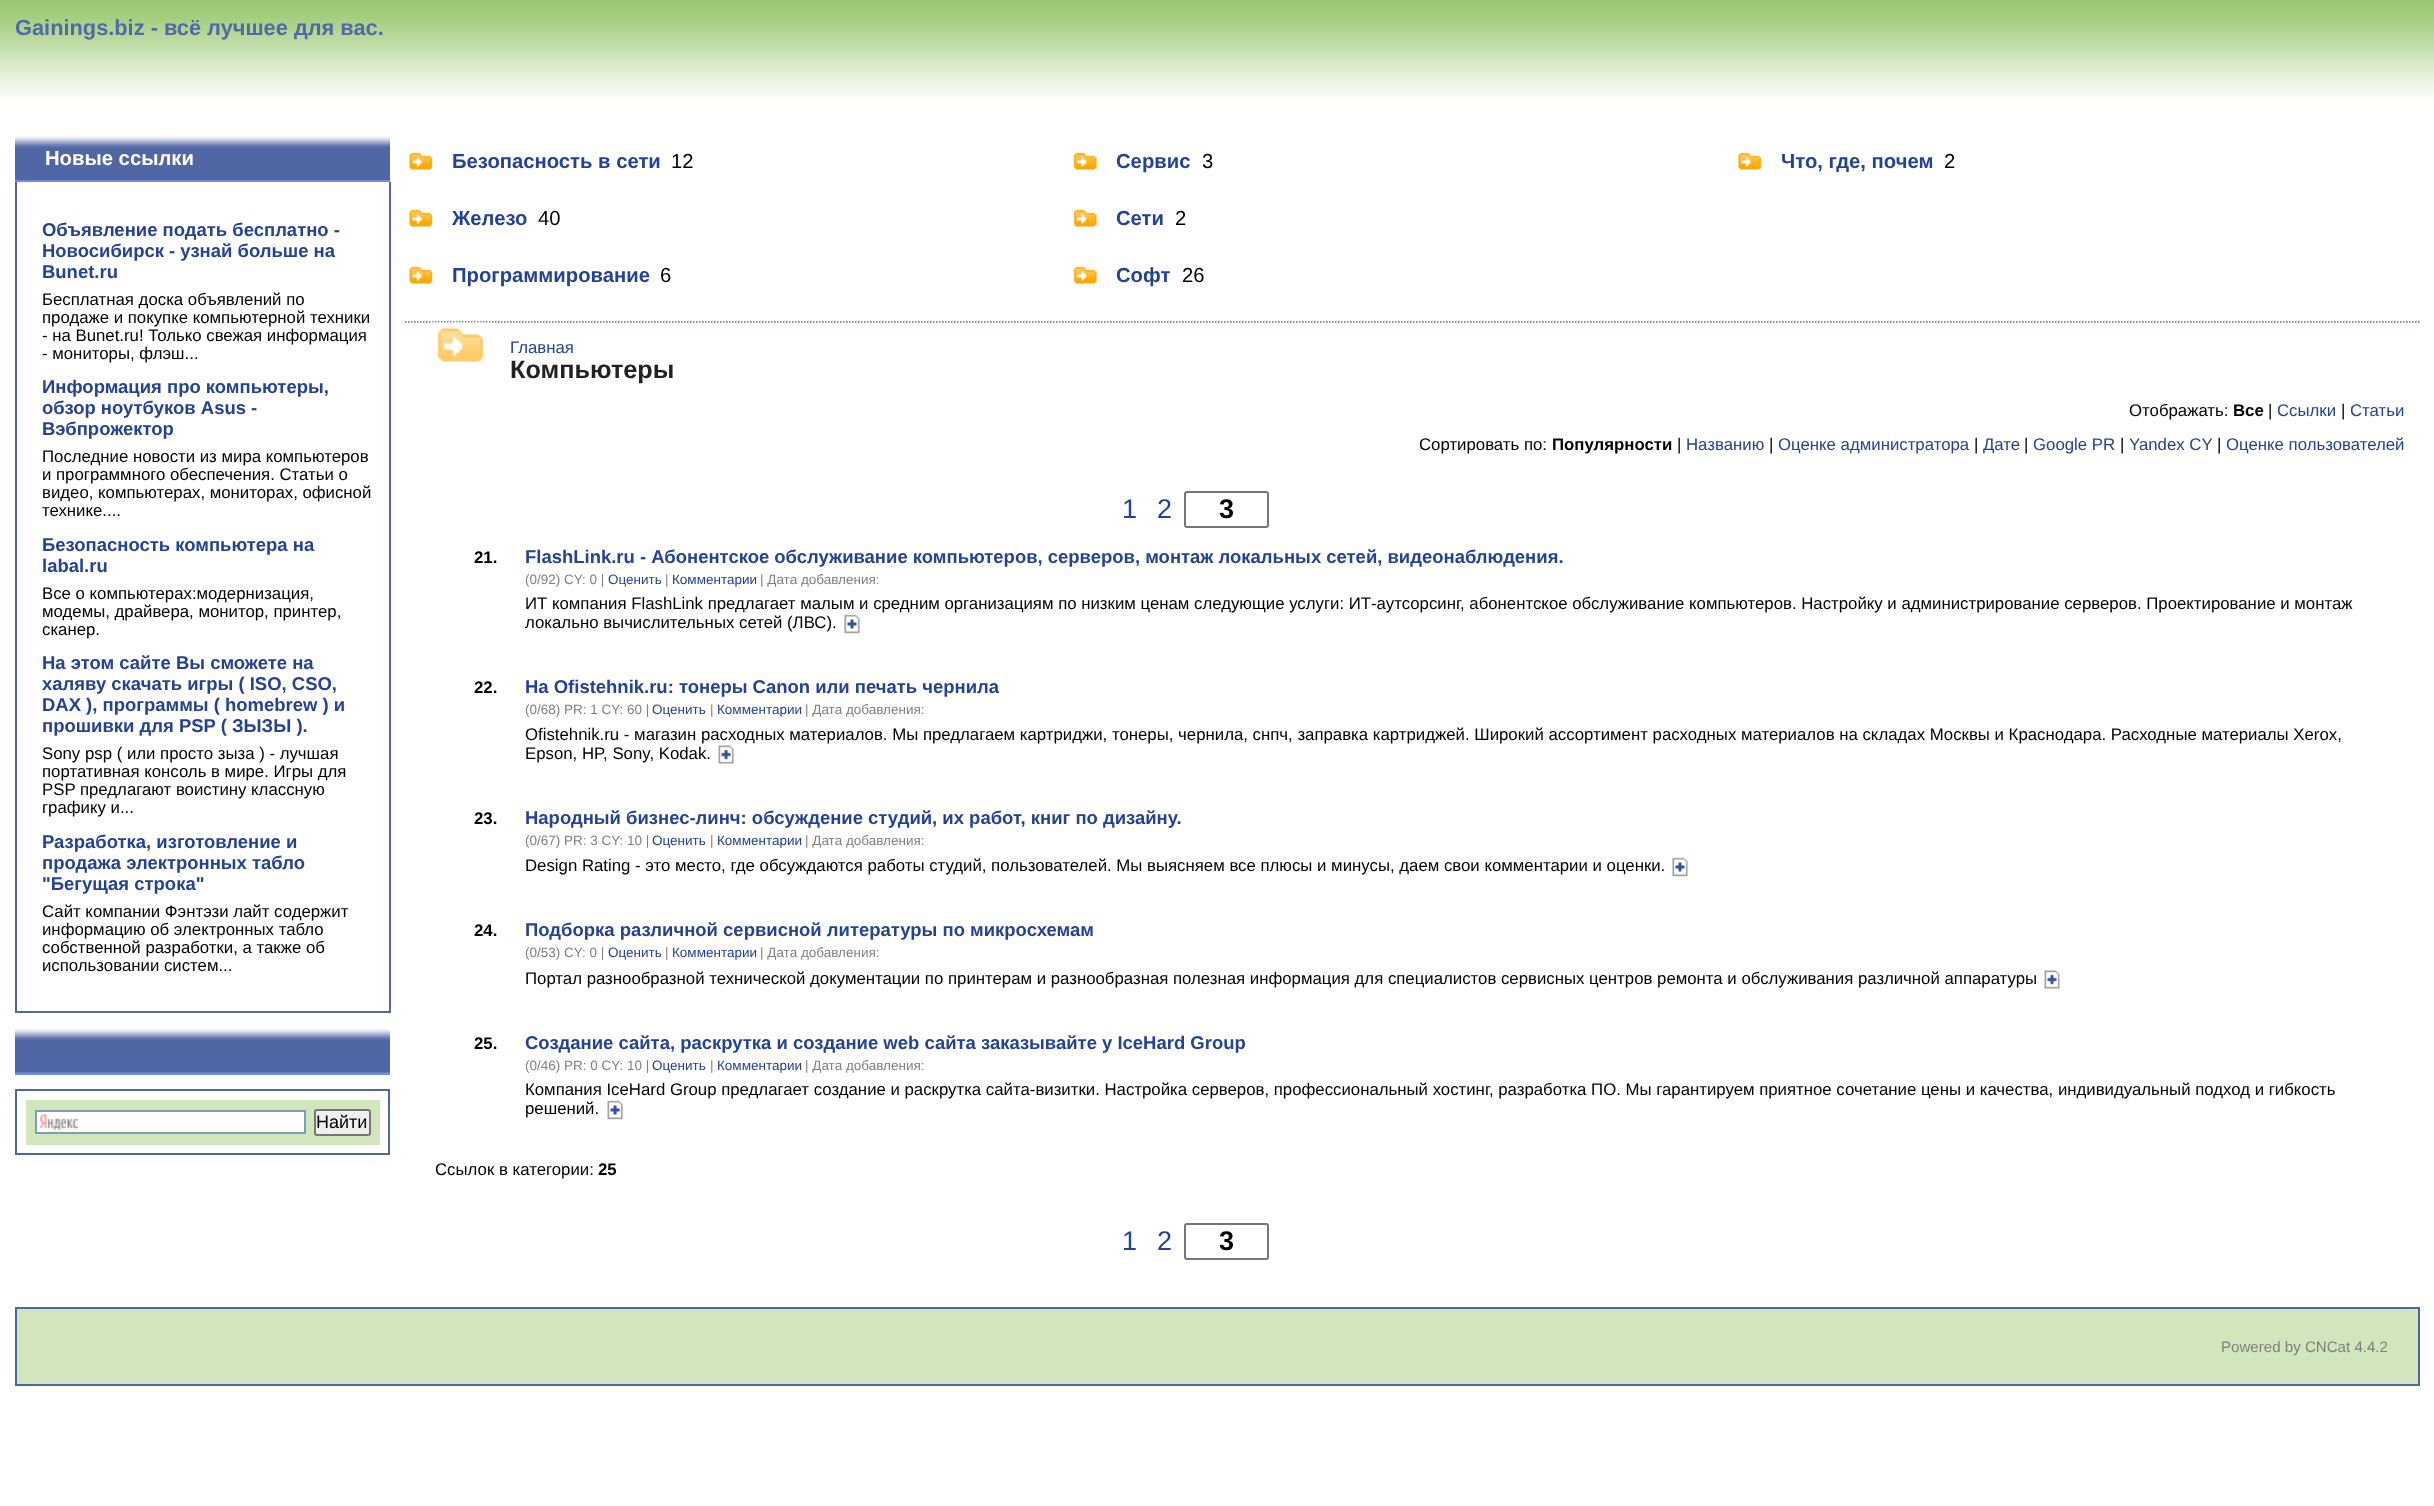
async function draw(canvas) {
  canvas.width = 2434;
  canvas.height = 1506;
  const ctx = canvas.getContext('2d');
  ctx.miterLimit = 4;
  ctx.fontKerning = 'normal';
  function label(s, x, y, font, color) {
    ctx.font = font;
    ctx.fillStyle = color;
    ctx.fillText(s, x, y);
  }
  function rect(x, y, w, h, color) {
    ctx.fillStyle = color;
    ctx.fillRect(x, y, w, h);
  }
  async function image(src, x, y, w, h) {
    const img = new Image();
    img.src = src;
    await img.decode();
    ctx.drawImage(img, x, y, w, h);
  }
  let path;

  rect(0, 0, 2434, 1506, '#fff');
  await image('assets/img1.png', 0, 0, 2434, 100);
  label('Gainings.biz - всё лучшее для вас.', 15, 35, 'bold 21.8px Liberation Sans', '#5268a7');
  rect(15, 180, 375, 2, '#708ee1');
  await image('assets/img2.png', 15, 135, 375, 45);
  label('Новые ссылки', 45, 165, 'bold 20.25px Liberation Sans', '#fff');
  rect(389, 182, 2, 831, '#5167a5');
  rect(15, 1011, 375, 2, '#5167a5');
  rect(15, 182, 2, 831, '#5167a5');
  label('Объявление подать бесплатно -', 42, 236, 'bold 18.48px Liberation Sans', '#244296');
  label('Новосибирск - узнай больше на', 42, 257, 'bold 18.48px Liberation Sans', '#244296');
  label('Bunet.ru', 42, 278, 'bold 18.48px Liberation Sans', '#244296');
  label('Бесплатная доска объявлений по', 42, 305, '16.8px Liberation Sans', '#000');
  label('продаже и покупке компьютерной техники', 42, 323, '16.8px Liberation Sans', '#000');
  label('- на Bunet.ru! Только свежая информация', 42, 341, '16.8px Liberation Sans', '#000');
  label('- мониторы, флэш...', 42, 359, '16.8px Liberation Sans', '#000');
  label('Информация про компьютеры,', 42, 393, 'bold 18.48px Liberation Sans', '#244296');
  label('обзор ноутбуков Asus -', 42, 414, 'bold 18.48px Liberation Sans', '#244296');
  label('Вэбпрожектор', 42, 435, 'bold 18.48px Liberation Sans', '#244296');
  label('Последние новости из мира компьютеров', 42, 462, '16.8px Liberation Sans', '#000');
  label('и программного обеспечения. Статьи о', 42, 480, '16.8px Liberation Sans', '#000');
  label('видео, компьютерах, мониторах, офисной', 42, 498, '16.8px Liberation Sans', '#000');
  label('технике....', 42, 516, '16.8px Liberation Sans', '#000');
  label('Безопасность компьютера на', 42, 551, 'bold 18.48px Liberation Sans', '#244296');
  label('labal.ru', 42, 572, 'bold 18.48px Liberation Sans', '#244296');
  label('Все о компьютерах:модернизация,', 42, 599, '16.8px Liberation Sans', '#000');
  label('модемы, драйвера, монитор, принтер,', 42, 617, '16.8px Liberation Sans', '#000');
  label('сканер.', 42, 635, '16.8px Liberation Sans', '#000');
  label('На этом сайте Вы сможете на', 42, 669, 'bold 18.48px Liberation Sans', '#244296');
  label('халяву скачать игры ( ISO, CSO,', 42, 690, 'bold 18.48px Liberation Sans', '#244296');
  label('DAX ), программы ( homebrew ) и', 42, 711, 'bold 18.48px Liberation Sans', '#244296');
  label('прошивки для PSP ( ЗЫЗЫ ).', 42, 732, 'bold 18.48px Liberation Sans', '#244296');
  label('Sony psp ( или просто зыза ) - лучшая', 42, 759, '16.8px Liberation Sans', '#000');
  label('портативная консоль в мире. Игры для', 42, 777, '16.8px Liberation Sans', '#000');
  label('PSP предлагают воистину классную', 42, 795, '16.8px Liberation Sans', '#000');
  label('графику и...', 42, 813, '16.8px Liberation Sans', '#000');
  label('Разработка, изготовление и', 42, 848, 'bold 18.48px Liberation Sans', '#244296');
  label('продажа электронных табло', 42, 869, 'bold 18.48px Liberation Sans', '#244296');
  label('"Бегущая строка"', 42, 890, 'bold 18.48px Liberation Sans', '#244296');
  label('Сайт компании Фэнтэзи лайт содержит', 42, 917, '16.8px Liberation Sans', '#000');
  label('информацию об электронных табло', 42, 935, '16.8px Liberation Sans', '#000');
  label('собственной разработки, а также об', 42, 953, '16.8px Liberation Sans', '#000');
  label('использовании систем...', 42, 971, '16.8px Liberation Sans', '#000');
  rect(15, 1072, 375, 3, '#708ee1');
  await image('assets/img3.png', 15, 1028, 375, 45);
  ctx.strokeStyle = '#5167a5';
  ctx.lineWidth = 2;
  ctx.strokeRect(16, 1090, 373, 64);
  rect(26, 1100, 354, 45, '#d1e6bd');
  rect(37, 1112, 267, 20, '#fff');
  await image('assets/img4.png', 39, 1114, 39, 17);
  ctx.strokeStyle = '#7f9db9';
  ctx.strokeRect(36, 1111, 269, 22);
  ctx.fillStyle = '#efefef';
  ctx.beginPath();
  ctx.roundRect(315, 1110, 55, 25, 2);
  ctx.fill();
  ctx.strokeStyle = '#767676';
  ctx.stroke();
  label('Найти', 316, 1128, '18px Liberation Sans', '#000');
  await image('assets/img5.png', 409, 152, 24, 18);
  label('Безопасность в сети', 452, 168, 'bold 20.25px Liberation Sans', '#244296');
  label('12', 671, 168, '20.25px Liberation Sans', '#000');
  await image('assets/img5.png', 409, 209, 24, 18);
  label('Железо', 452, 225, 'bold 20.25px Liberation Sans', '#244296');
  label('40', 538, 225, '20.25px Liberation Sans', '#000');
  await image('assets/img5.png', 409, 266, 24, 18);
  label('Программирование', 452, 282, 'bold 20.25px Liberation Sans', '#244296');
  label('6', 660, 282, '20.25px Liberation Sans', '#000');
  await image('assets/img6.png', 1073, 152, 24, 18);
  label('Сервис', 1116, 168, 'bold 20.25px Liberation Sans', '#244296');
  label('3', 1202, 168, '20.25px Liberation Sans', '#000');
  await image('assets/img6.png', 1073, 209, 24, 18);
  label('Сети', 1116, 225, 'bold 20.25px Liberation Sans', '#244296');
  label('2', 1175, 225, '20.25px Liberation Sans', '#000');
  await image('assets/img6.png', 1073, 266, 24, 18);
  label('Софт', 1116, 282, 'bold 20.25px Liberation Sans', '#244296');
  label('26', 1182, 282, '20.25px Liberation Sans', '#000');
  await image('assets/img7.png', 1738, 152, 24, 18);
  label('Что, где, почем', 1781, 168, 'bold 20.25px Liberation Sans', '#244296');
  label('2', 1944, 168, '20.25px Liberation Sans', '#000');
  path = new Path2D('M405 322H2419.5');
  ctx.strokeStyle = '#5167a5';
  ctx.lineWidth = 1.5;
  ctx.setLineDash([1.5, 1.5]);
  ctx.stroke(path);
  await image('assets/img8.png', 432, 322, 59, 40);
  label('Главная', 510, 353, '16.8px Liberation Sans', '#244296');
  label('Компьютеры', 510, 378, 'bold 25.25px Liberation Sans', '#222');
  label('Отображать:', 2129, 416, '16.8px Liberation Sans', '#000');
  label('Все', 2233, 416, 'bold 16.8px Liberation Sans', '#000');
  label('|', 2268, 416, '16.8px Liberation Sans', '#000');
  label('Ссылки', 2277, 416, '16.8px Liberation Sans', '#244296');
  label('|', 2341, 416, '16.8px Liberation Sans', '#000');
  label('Статьи', 2350, 416, '16.8px Liberation Sans', '#244296');
  label('Сортировать по:', 1419, 450, '16.8px Liberation Sans', '#000');
  label('Популярности', 1552, 450, 'bold 16.8px Liberation Sans', '#000');
  label('|', 1677, 450, '16.8px Liberation Sans', '#000');
  label('Названию', 1686, 450, '16.8px Liberation Sans', '#244296');
  label('|', 1769, 450, '16.8px Liberation Sans', '#000');
  label('Оценке администратора', 1778, 450, '16.8px Liberation Sans', '#244296');
  label('|', 1974, 450, '16.8px Liberation Sans', '#000');
  label('Дате', 1983, 450, '16.8px Liberation Sans', '#244296');
  label('|', 2024, 450, '16.8px Liberation Sans', '#000');
  label('Google PR', 2033, 450, '16.8px Liberation Sans', '#244296');
  label('|', 2120, 450, '16.8px Liberation Sans', '#000');
  label('Yandex CY', 2129, 450, '16.8px Liberation Sans', '#244296');
  label('|', 2217, 450, '16.8px Liberation Sans', '#000');
  label('Оценке пользователей', 2226, 450, '16.8px Liberation Sans', '#244296');
  label('1', 1122, 518, '27px Liberation Sans', '#244296');
  label('2', 1157, 518, '27px Liberation Sans', '#244296');
  ctx.beginPath();
  ctx.roundRect(1185, 492, 83, 35, 2);
  ctx.strokeStyle = '#767676';
  ctx.lineWidth = 2;
  ctx.setLineDash([]);
  ctx.stroke();
  label('3', 1219, 518, 'bold 27px Liberation Sans', '#000');
  label('21.', 474, 563, 'bold 16.8px Liberation Sans', '#000');
  label('FlashLink.ru - Абонентское обслуживание компьютеров, серверов, монтаж локальных сетей, видеонаблюдения.', 525, 563, 'bold 18.48px Liberation Sans', '#244296');
  label('(0/92) CY: 0 |', 525, 584, '13.5px Liberation Sans', '#808080');
  label('Оценить', 608, 584, '13.5px Liberation Sans', '#244296');
  label('|', 665, 584, '13.5px Liberation Sans', '#808080');
  label('Комментарии', 672, 584, '13.5px Liberation Sans', '#244296');
  label('| Дата добавления:', 760, 584, '13.5px Liberation Sans', '#808080');
  label('ИТ компания FlashLink предлагает малым и средним организациям по низким ценам следующие услуги: ИТ-аутсорсинг, абонентское обслуживание компьютеров. Настройку и администрирование серверов. Проектирование и монтаж', 525, 609, '16.8px Liberation Sans', '#000');
  label('локально вычислительных сетей (ЛВС).', 525, 628, '16.8px Liberation Sans', '#000');
  await image('assets/img9.png', 844, 614, 16, 20);
  label('22.', 474, 693, 'bold 16.8px Liberation Sans', '#000');
  label('На Ofistehnik.ru: тонеры Сanon или печать чернила', 525, 693, 'bold 18.48px Liberation Sans', '#244296');
  label('(0/68) PR: 1 CY: 60 |', 525, 714, '13.5px Liberation Sans', '#808080');
  label('Оценить', 652, 714, '13.5px Liberation Sans', '#244296');
  label('|', 710, 714, '13.5px Liberation Sans', '#808080');
  label('Комментарии', 717, 714, '13.5px Liberation Sans', '#244296');
  label('| Дата добавления:', 805, 714, '13.5px Liberation Sans', '#808080');
  label('Ofistehnik.ru - магазин расходных материалов. Мы предлагаем картриджи, тонеры, чернила, снпч, заправка картриджей. Широкий ассортимент расходных материалов на складах Москвы и Краснодара. Расходные материалы Xerox,', 525, 740, '16.8px Liberation Sans', '#000');
  label('Epson, HP, Sony, Kodak.', 525, 759, '16.8px Liberation Sans', '#000');
  await image('assets/img10.png', 718, 745, 16, 19);
  label('23.', 474, 824, 'bold 16.8px Liberation Sans', '#000');
  label('Народный бизнес-линч: обсуждение студий, их работ, книг по дизайну.', 525, 824, 'bold 18.48px Liberation Sans', '#244296');
  label('(0/67) PR: 3 CY: 10 |', 525, 845, '13.5px Liberation Sans', '#808080');
  label('Оценить', 652, 845, '13.5px Liberation Sans', '#244296');
  label('|', 710, 845, '13.5px Liberation Sans', '#808080');
  label('Комментарии', 717, 845, '13.5px Liberation Sans', '#244296');
  label('| Дата добавления:', 805, 845, '13.5px Liberation Sans', '#808080');
  label('Design Rating - это место, где обсуждаются работы студий, пользователей. Мы выясняем все плюсы и минусы, даем свои комментарии и оценки.', 525, 871, '16.8px Liberation Sans', '#000');
  await image('assets/img9.png', 1672, 857, 16, 20);
  label('24.', 474, 936, 'bold 16.8px Liberation Sans', '#000');
  label('Подборка различной сервисной литературы по микросхемам', 525, 936, 'bold 18.48px Liberation Sans', '#244296');
  label('(0/53) CY: 0 |', 525, 957, '13.5px Liberation Sans', '#808080');
  label('Оценить', 608, 957, '13.5px Liberation Sans', '#244296');
  label('|', 665, 957, '13.5px Liberation Sans', '#808080');
  label('Комментарии', 672, 957, '13.5px Liberation Sans', '#244296');
  label('| Дата добавления:', 760, 957, '13.5px Liberation Sans', '#808080');
  label('Портал разнообразной технической документации по принтерам и разнообразная полезная информация для специалистов сервисных центров ремонта и обслуживания различной аппаратуры', 525, 984, '16.8px Liberation Sans', '#000');
  await image('assets/img11.png', 2044, 970, 16, 19);
  label('25.', 474, 1049, 'bold 16.8px Liberation Sans', '#000');
  label('Создание сайта, раскрутка и создание web сайта заказывайте у IceHard Group', 525, 1049, 'bold 18.48px Liberation Sans', '#244296');
  label('(0/46) PR: 0 CY: 10 |', 525, 1070, '13.5px Liberation Sans', '#808080');
  label('Оценить', 652, 1070, '13.5px Liberation Sans', '#244296');
  label('|', 710, 1070, '13.5px Liberation Sans', '#808080');
  label('Комментарии', 717, 1070, '13.5px Liberation Sans', '#244296');
  label('| Дата добавления:', 805, 1070, '13.5px Liberation Sans', '#808080');
  label('Компания IceHard Group предлагает создание и раскрутка сайта-визитки. Настройка серверов, профессиональный хостинг, разработка ПО. Мы гарантируем приятное сочетание цены и качества, индивидуальный подход и гибкость', 525, 1095, '16.8px Liberation Sans', '#000');
  label('решений.', 525, 1114, '16.8px Liberation Sans', '#000');
  await image('assets/img12.png', 607, 1100, 16, 20);
  label('Ссылок в категории:', 435, 1175, '16.8px Liberation Sans', '#000');
  label('25', 598, 1175, 'bold 16.8px Liberation Sans', '#000');
  label('1', 1122, 1250, '27px Liberation Sans', '#244296');
  label('2', 1157, 1250, '27px Liberation Sans', '#244296');
  ctx.beginPath();
  ctx.roundRect(1185, 1224, 83, 35, 2);
  ctx.stroke();
  label('3', 1219, 1250, 'bold 27px Liberation Sans', '#000');
  ctx.fillStyle = '#d1e6bd';
  ctx.beginPath();
  ctx.rect(16, 1308, 2403, 77);
  ctx.fill();
  ctx.strokeStyle = '#5167a5';
  ctx.stroke();
  label('Powered by CNCat 4.4.2', 2221, 1352, '15.1px Liberation Sans', '#808080');
}

draw(document.querySelector('canvas'));
